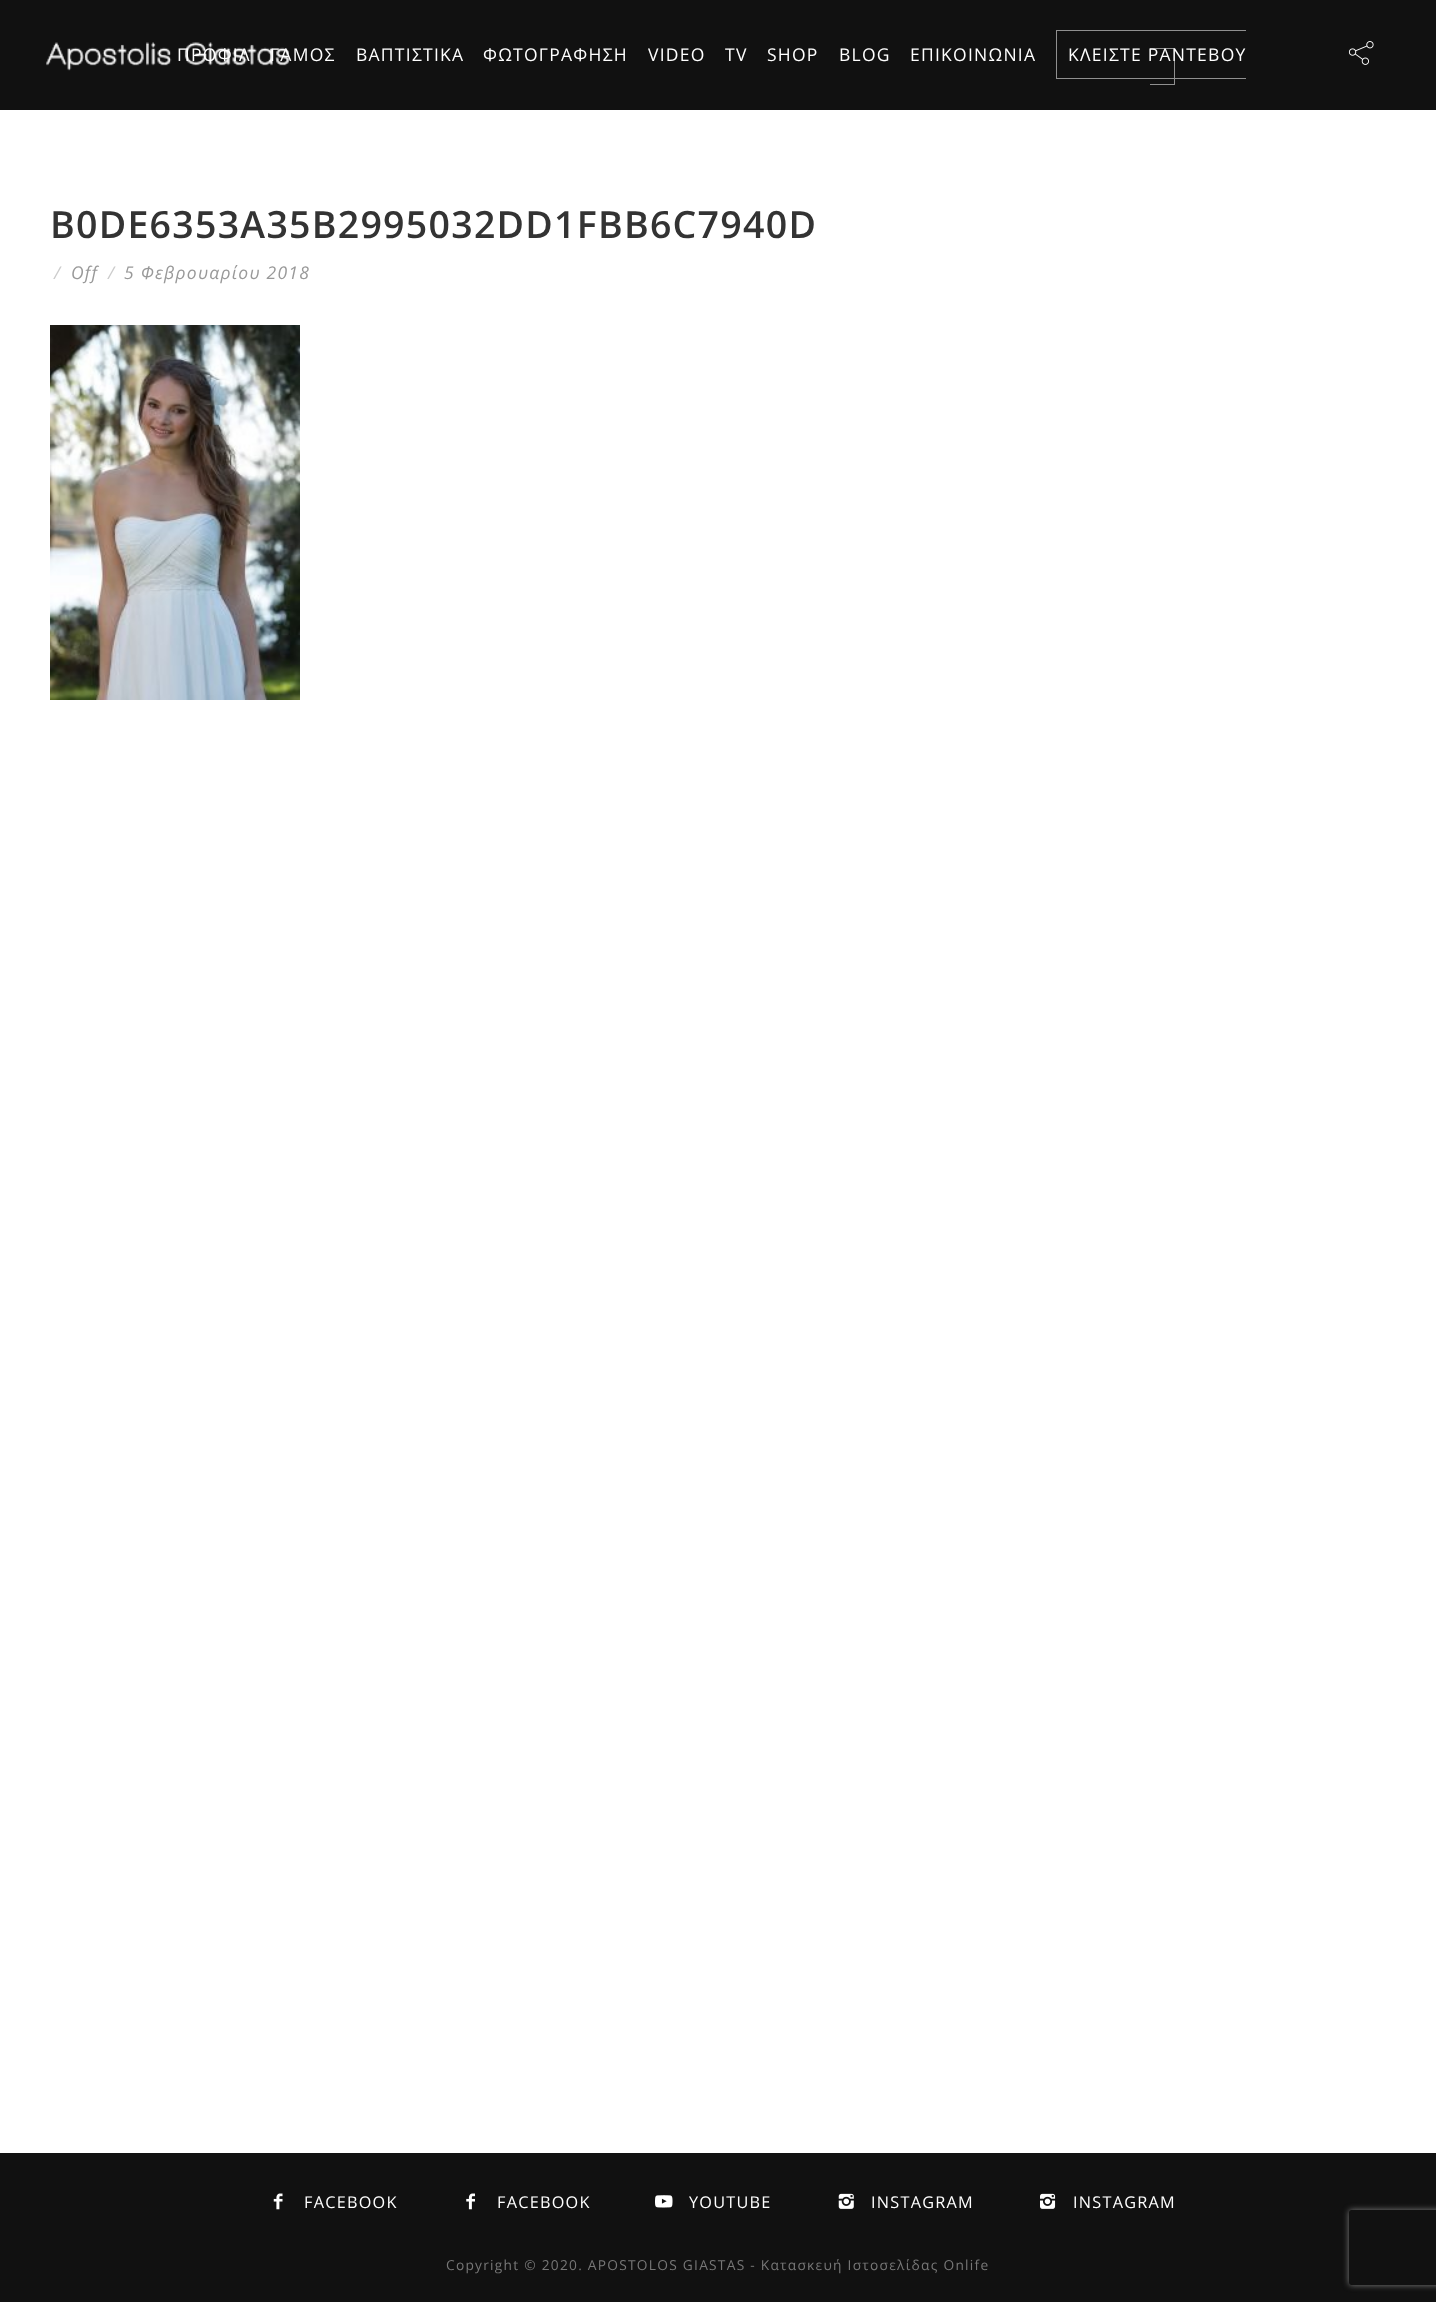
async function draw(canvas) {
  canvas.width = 1436;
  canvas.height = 2302;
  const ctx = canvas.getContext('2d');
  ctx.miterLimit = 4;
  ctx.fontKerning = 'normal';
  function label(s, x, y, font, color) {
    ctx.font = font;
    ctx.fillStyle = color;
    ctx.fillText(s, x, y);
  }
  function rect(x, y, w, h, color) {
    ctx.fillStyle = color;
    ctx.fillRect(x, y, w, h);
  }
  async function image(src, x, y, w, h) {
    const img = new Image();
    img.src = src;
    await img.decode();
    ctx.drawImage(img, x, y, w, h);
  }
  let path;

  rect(0, 0, 1436, 2302, '#fff');
  rect(0, 0, 1436, 110, '#111');
  ctx.letterSpacing = '1.25px';
  label('ΠΡΟΦΙΛ', 177, 61, '17.5px Open Sans', '#fff');
  label('ΓΑΜΟΣ', 270, 61, '17.5px Open Sans', '#fff');
  await image('assets/img1.png', 46, 42, 243, 29);
  label('ΒΑΠΤΙΣΤΙΚΑ', 356, 61, '17.5px Open Sans', '#fff');
  label('ΦΩΤΟΓΡΑΦΗΣΗ', 483, 61, '17.5px Open Sans', '#fff');
  label('VIDEO', 648, 61, '17.5px Open Sans', '#fff');
  label('TV', 725, 61, '17.5px Open Sans', '#fff');
  label('SHOP', 767, 61, '17.5px Open Sans', '#fff');
  label('BLOG', 839, 61, '17.5px Open Sans', '#fff');
  label('ΕΠΙΚΟΙΝΩΝΙΑ', 910, 61, '17.5px Open Sans', '#fff');
  rect(1150, 48, 25, 1, '#909090');
  rect(1056, 78, 190, 1, '#909090');
  rect(1174, 48, 1, 37, '#909090');
  label('ΚΛΕΙΣΤΕ ΡΑΝΤΕΒΟΥ', 1068, 61, '17.5px Open Sans', '#fff');
  rect(1056, 30, 190, 1, '#909090');
  rect(1056, 30, 1, 49, '#909090');
  rect(1150, 84, 25, 1, '#909090');
  await image('assets/img2.png', 1348, 41, 26, 24);
  label('B0DE6353A35B2995032DD1FBB6C7940D', 50, 238, '600 37.5px Open Sans', '#333');
  label('/', 54, 279, 'italic 17.5px Open Sans', '#ccc');
  label('Off', 71, 279, 'italic 17.5px Open Sans', '#999');
  label('/', 108, 279, 'italic 17.5px Open Sans', '#ccc');
  label('5 Φεβρουαρίου 2018', 124, 279, 'italic 17.5px Open Sans', '#999');
  await image('assets/img3.png', 50, 325, 250, 375);
  rect(0, 2153, 1436, 149, '#111');
  await image('assets/img4.png', 273, 2193, 10, 17);
  label('FACEBOOK', 304, 2208, '16.25px Open Sans', '#fff');
  await image('assets/img5.png', 466, 2193, 9, 17);
  label('FACEBOOK', 497, 2208, '16.25px Open Sans', '#fff');
  await image('assets/img6.png', 655, 2195, 18, 13);
  label('YOUTUBE', 689, 2208, '16.25px Open Sans', '#fff');
  await image('assets/img7.png', 838, 2193, 16, 16);
  label('INSTAGRAM', 871, 2208, '16.25px Open Sans', '#fff');
  await image('assets/img8.png', 1040, 2193, 16, 16);
  label('INSTAGRAM', 1073, 2208, '16.25px Open Sans', '#fff');
  label('Copyright © 2020. APOSTOLOS GIASTAS - Κατασκευή Ιστοσελίδας Onlife', 446, 2270, '13.75px Open Sans', '#777');
  ctx.save();
  path = new Path2D('M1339 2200H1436V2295H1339ZM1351.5 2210H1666.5C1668 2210 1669 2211 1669 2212.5V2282.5C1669 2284 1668 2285 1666.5 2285H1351.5C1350 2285 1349 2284 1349 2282.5V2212.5C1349 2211 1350 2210 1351.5 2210Z');
  ctx.clip(path, 'evenodd');
  ctx.fillStyle = '#808080';
  ctx.filter = 'blur(3px)';
  ctx.beginPath();
  ctx.roundRect(1349, 2210, 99, 75, 2.5);
  ctx.fill();
  ctx.filter = 'none';
  ctx.restore();
}

draw(document.querySelector('canvas'));
